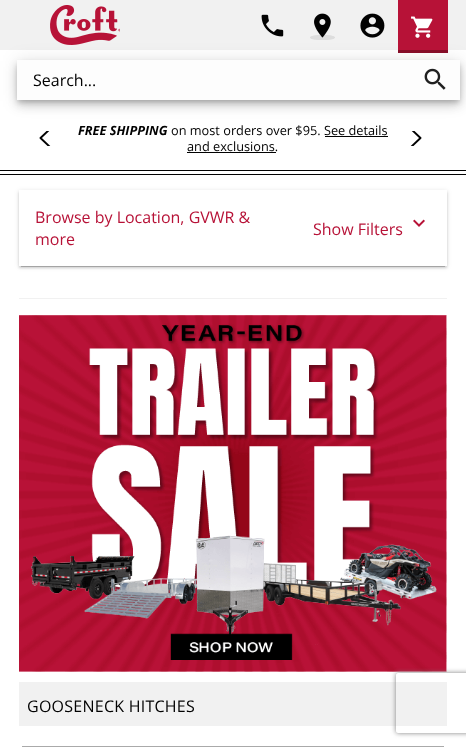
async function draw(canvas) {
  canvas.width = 466;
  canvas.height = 747;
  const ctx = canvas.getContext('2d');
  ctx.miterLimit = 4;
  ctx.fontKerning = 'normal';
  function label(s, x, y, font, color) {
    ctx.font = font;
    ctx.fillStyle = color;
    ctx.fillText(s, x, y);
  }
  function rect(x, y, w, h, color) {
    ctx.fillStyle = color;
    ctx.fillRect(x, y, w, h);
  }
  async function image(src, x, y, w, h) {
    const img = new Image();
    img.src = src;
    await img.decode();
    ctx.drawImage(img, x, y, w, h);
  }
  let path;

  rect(0, 0, 466, 747, '#fff');
  rect(0, 0, 466, 50, '#f1f1f1');
  await image('assets/img1.png', 50, 5, 70, 40);
  await image('assets/img2.png', 261, 14, 23, 23);
  ctx.fillStyle = '#ddd';
  ctx.beginPath();
  ctx.ellipse(322.5, 37.5, 12.5, 2.5, 0, 0, 2 * Math.PI);
  ctx.fill();
  path = new Path2D('M322.5 35.5C329 35.5 334.5 36.5 334.5 37.5C334.5 38.5 329 39.5 322.5 39.5C316 39.5 310.5 38.5 310.5 37.5C310.5 36.5 316 35.5 322.5 35.5Z');
  ctx.strokeStyle = '#ddd';
  ctx.stroke(path);
  await image('assets/img3.png', 314, 13, 17, 25);
  await image('assets/img4.png', 360, 13, 25, 25);
  ctx.fillStyle = '#0000001f';
  ctx.filter = 'blur(9px)';
  ctx.beginPath();
  ctx.rect(17, 61, 443, 40);
  ctx.fill();
  ctx.filter = 'none';
  rect(398, 0, 50, 50, '#b71237');
  ctx.fillStyle = '#00000024';
  ctx.filter = 'blur(5px)';
  ctx.beginPath();
  ctx.rect(17, 66, 443, 40);
  ctx.fill();
  ctx.filter = 'none';
  rect(398, 50, 50, 3, '#850d28');
  await image('assets/img5.png', 411, 16, 22, 22);
  ctx.fillStyle = '#00000033';
  ctx.filter = 'blur(2.5px)';
  ctx.beginPath();
  ctx.rect(18, 64, 441, 38);
  ctx.fill();
  ctx.filter = 'none';
  rect(17, 60, 443, 40, '#fdfdfd');
  label('Search...', 33, 86, '16px Open Sans', '#020202');
  await image('assets/img6.png', 424, 68, 22, 22);
  rect(0, 170, 466, 1, '#020202');
  ctx.save();
  ctx.beginPath();
  ctx.rect(39, 131, 23, 15);
  ctx.clip();
  path = new Path2D('M60.5 119L40.5 138L60.5 157');
  ctx.strokeStyle = '#020202';
  ctx.lineWidth = 1.9;
  ctx.lineCap = 'round';
  ctx.lineJoin = 'round';
  ctx.stroke(path);
  ctx.restore();
  label('FREE SHIPPING', 78, 135, 'italic bold 12.75px Open Sans', '#020202');
  label('on most orders over $95. See details', 171, 135, '12.75px Open Sans', '#020202');
  label('and exclusions.', 187, 151, '12.75px Open Sans', '#020202');
  rect(325, 136, 63, 1, '#020202');
  rect(187, 152, 89, 1, '#020202');
  ctx.save();
  ctx.beginPath();
  ctx.rect(399, 131, 23, 15);
  ctx.clip();
  path = new Path2D('M400.5 119L420.5 138L400.5 157');
  ctx.strokeStyle = '#020202';
  ctx.lineWidth = 1.9;
  ctx.lineCap = 'round';
  ctx.lineJoin = 'round';
  ctx.stroke(path);
  ctx.restore();
  rect(0, 174, 466, 1, '#020202');
  ctx.save();
  path = new Path2D('M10 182H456V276H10ZM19 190H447V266H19Z');
  ctx.clip(path, 'evenodd');
  ctx.fillStyle = '#0000001f';
  ctx.filter = 'blur(2.5px)';
  ctx.beginPath();
  ctx.rect(19, 191, 428, 76);
  ctx.fill();
  ctx.filter = 'none';
  ctx.restore();
  ctx.save();
  ctx.beginPath();
  ctx.rect(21, 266, 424, 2);
  ctx.clip();
  ctx.fillStyle = '#00000033';
  ctx.filter = 'blur(0.5px)';
  ctx.beginPath();
  ctx.rect(21, 195, 424, 72);
  ctx.fill();
  ctx.filter = 'none';
  ctx.restore();
  ctx.save();
  path = new Path2D('M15 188H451V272H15ZM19 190H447V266H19Z');
  ctx.clip(path, 'evenodd');
  ctx.fillStyle = '#00000024';
  ctx.filter = 'blur(1px)';
  ctx.beginPath();
  ctx.rect(19, 192, 428, 76);
  ctx.fill();
  ctx.filter = 'none';
  ctx.restore();
  label('Browse by Location, GVWR &', 35, 223, '16px Open Sans', '#b71237');
  label('more', 35, 245, '16px Open Sans', '#b71237');
  label('Show Filters', 313, 235, '16px Open Sans', '#b71237');
  await image('assets/img7.png', 413, 219, 12, 8);
  rect(19, 298, 428, 1, '#f1f1f1');
  await image('assets/img8.png', 19, 315, 428, 357);
  rect(19, 682, 428, 44, '#f1f1f1');
  ctx.letterSpacing = '0.25px';
  label('GOOSENECK HITCHES', 27, 712, '16px Open Sans', '#020202');
  ctx.strokeStyle = '#aaa';
  ctx.strokeRect(22.5, 746.5, 421, 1);
  ctx.save();
  path = new Path2D('M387 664H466V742H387ZM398 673H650C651 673 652 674 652 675V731C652 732 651 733 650 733H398C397 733 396 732 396 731V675C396 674 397 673 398 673Z');
  ctx.clip(path, 'evenodd');
  ctx.fillStyle = '#808080';
  ctx.filter = 'blur(2.5px)';
  ctx.beginPath();
  ctx.roundRect(396, 673, 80, 60, 2);
  ctx.fill();
  ctx.filter = 'none';
  ctx.restore();
}

draw(document.querySelector('canvas'));
